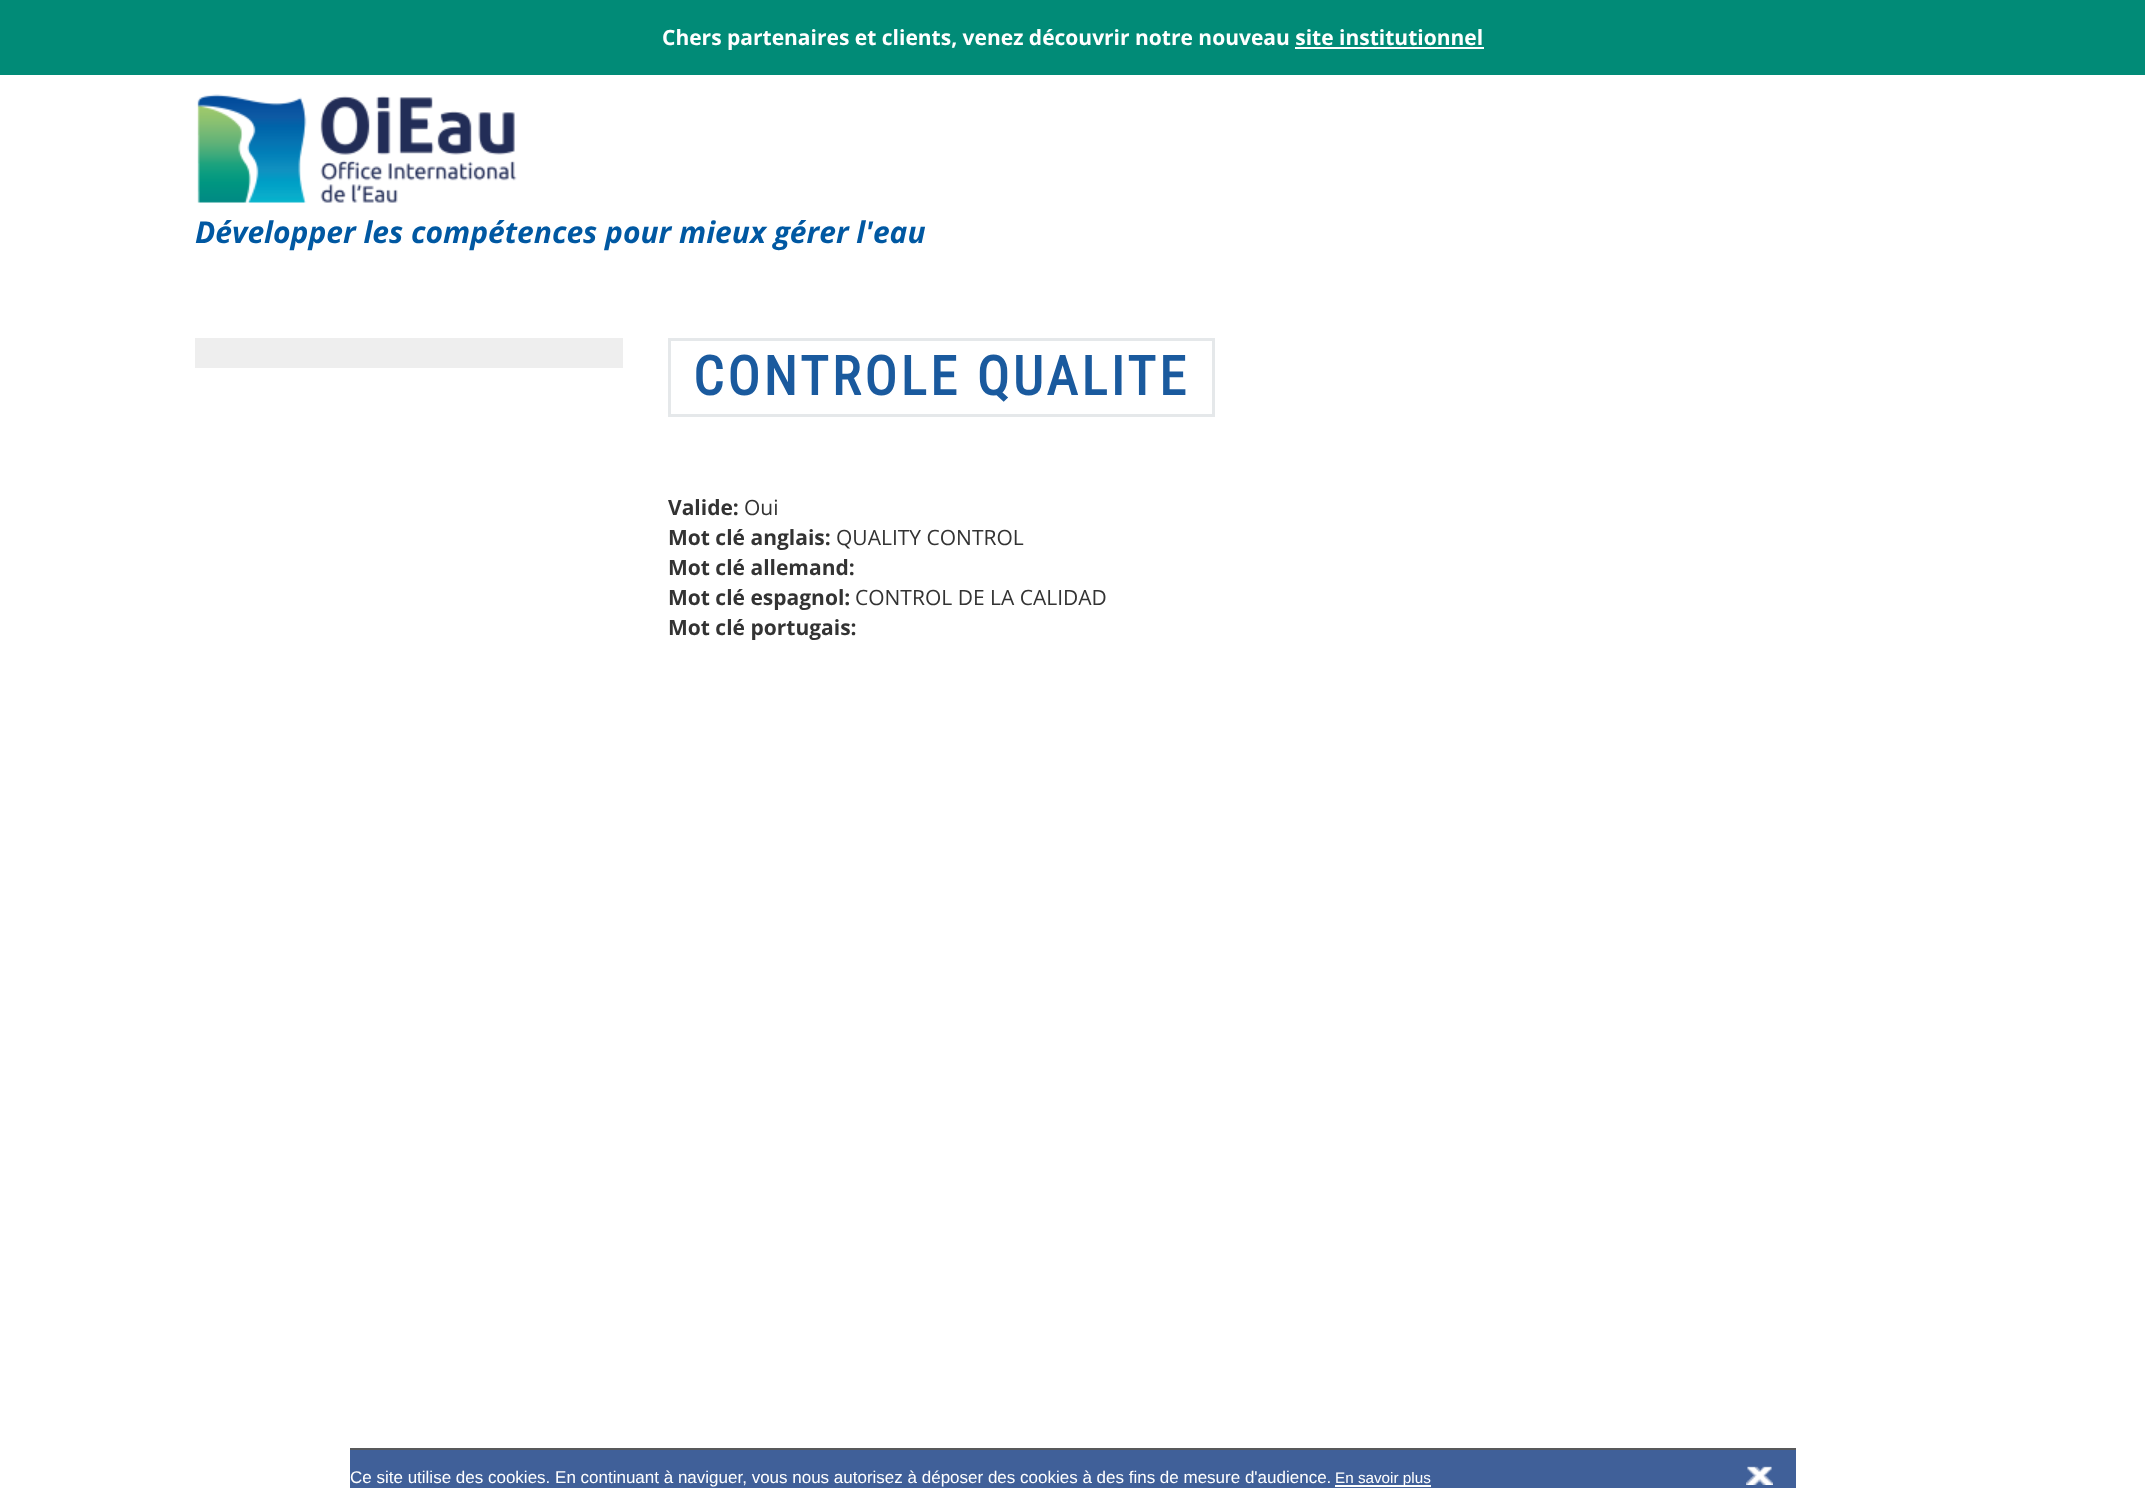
async function draw(canvas) {
  canvas.width = 2145;
  canvas.height = 1488;
  const ctx = canvas.getContext('2d');
  ctx.miterLimit = 4;
  ctx.fontKerning = 'normal';
  function label(s, x, y, font, color) {
    ctx.font = font;
    ctx.fillStyle = color;
    ctx.fillText(s, x, y);
  }
  function rect(x, y, w, h, color) {
    ctx.fillStyle = color;
    ctx.fillRect(x, y, w, h);
  }
  async function image(src, x, y, w, h) {
    const img = new Image();
    img.src = src;
    await img.decode();
    ctx.drawImage(img, x, y, w, h);
  }

  rect(0, 0, 2145, 1488, '#fff');
  rect(0, 0, 2145, 75, '#018b77');
  label('Chers partenaires et clients, venez découvrir notre nouveau site institutionnel', 662, 45, 'bold 21px Open Sans', '#fff');
  rect(1295, 47, 189, 2, '#fff');
  await image('assets/img1.png', 197, 94, 320, 109);
  label('Développer les compétences pour mieux gérer l\'eau', 195, 243, 'italic bold 30px Open Sans', '#0058a2');
  rect(195, 338, 428, 30, '#eee');
  ctx.strokeStyle = '#e5e8ea';
  ctx.lineWidth = 3;
  ctx.strokeRect(669.5, 339.5, 544, 76);
  ctx.letterSpacing = '3.75px';
  label('CONTROLE QUALITE', 693, 395, 'bold 54px Roboto Condensed', '#1a5a9e');
  ctx.letterSpacing = '0px';
  label('Valide:', 668, 515, 'bold 21px Open Sans', '#333');
  label('Oui', 744, 515, '21px Open Sans', '#333');
  label('Mot clé anglais:', 668, 545, 'bold 21px Open Sans', '#333');
  label('QUALITY CONTROL', 836, 545, '21px Open Sans', '#333');
  label('Mot clé allemand:', 668, 575, 'bold 21px Open Sans', '#333');
  label('Mot clé espagnol:', 668, 605, 'bold 21px Open Sans', '#333');
  label('CONTROL DE LA CALIDAD', 855, 605, '21px Open Sans', '#333');
  label('Mot clé portugais:', 668, 635, 'bold 21px Open Sans', '#333');
  rect(350, 1450, 1446, 38, '#406099');
  rect(350, 1448, 1446, 2, '#58595b');
  label('Ce site utilise des cookies. En continuant à naviguer, vous nous autorisez à déposer des cookies à des fins de mesure d\'audience.', 350, 1483, '17px Liberation Sans', '#fff');
  rect(1335, 1485, 96, 2, '#fff');
  label('En savoir plus', 1335, 1483, '15.25px Liberation Sans', '#fff');
  await image('assets/img2.png', 1746, 1466, 27, 19);
}

draw(document.querySelector('canvas'));
